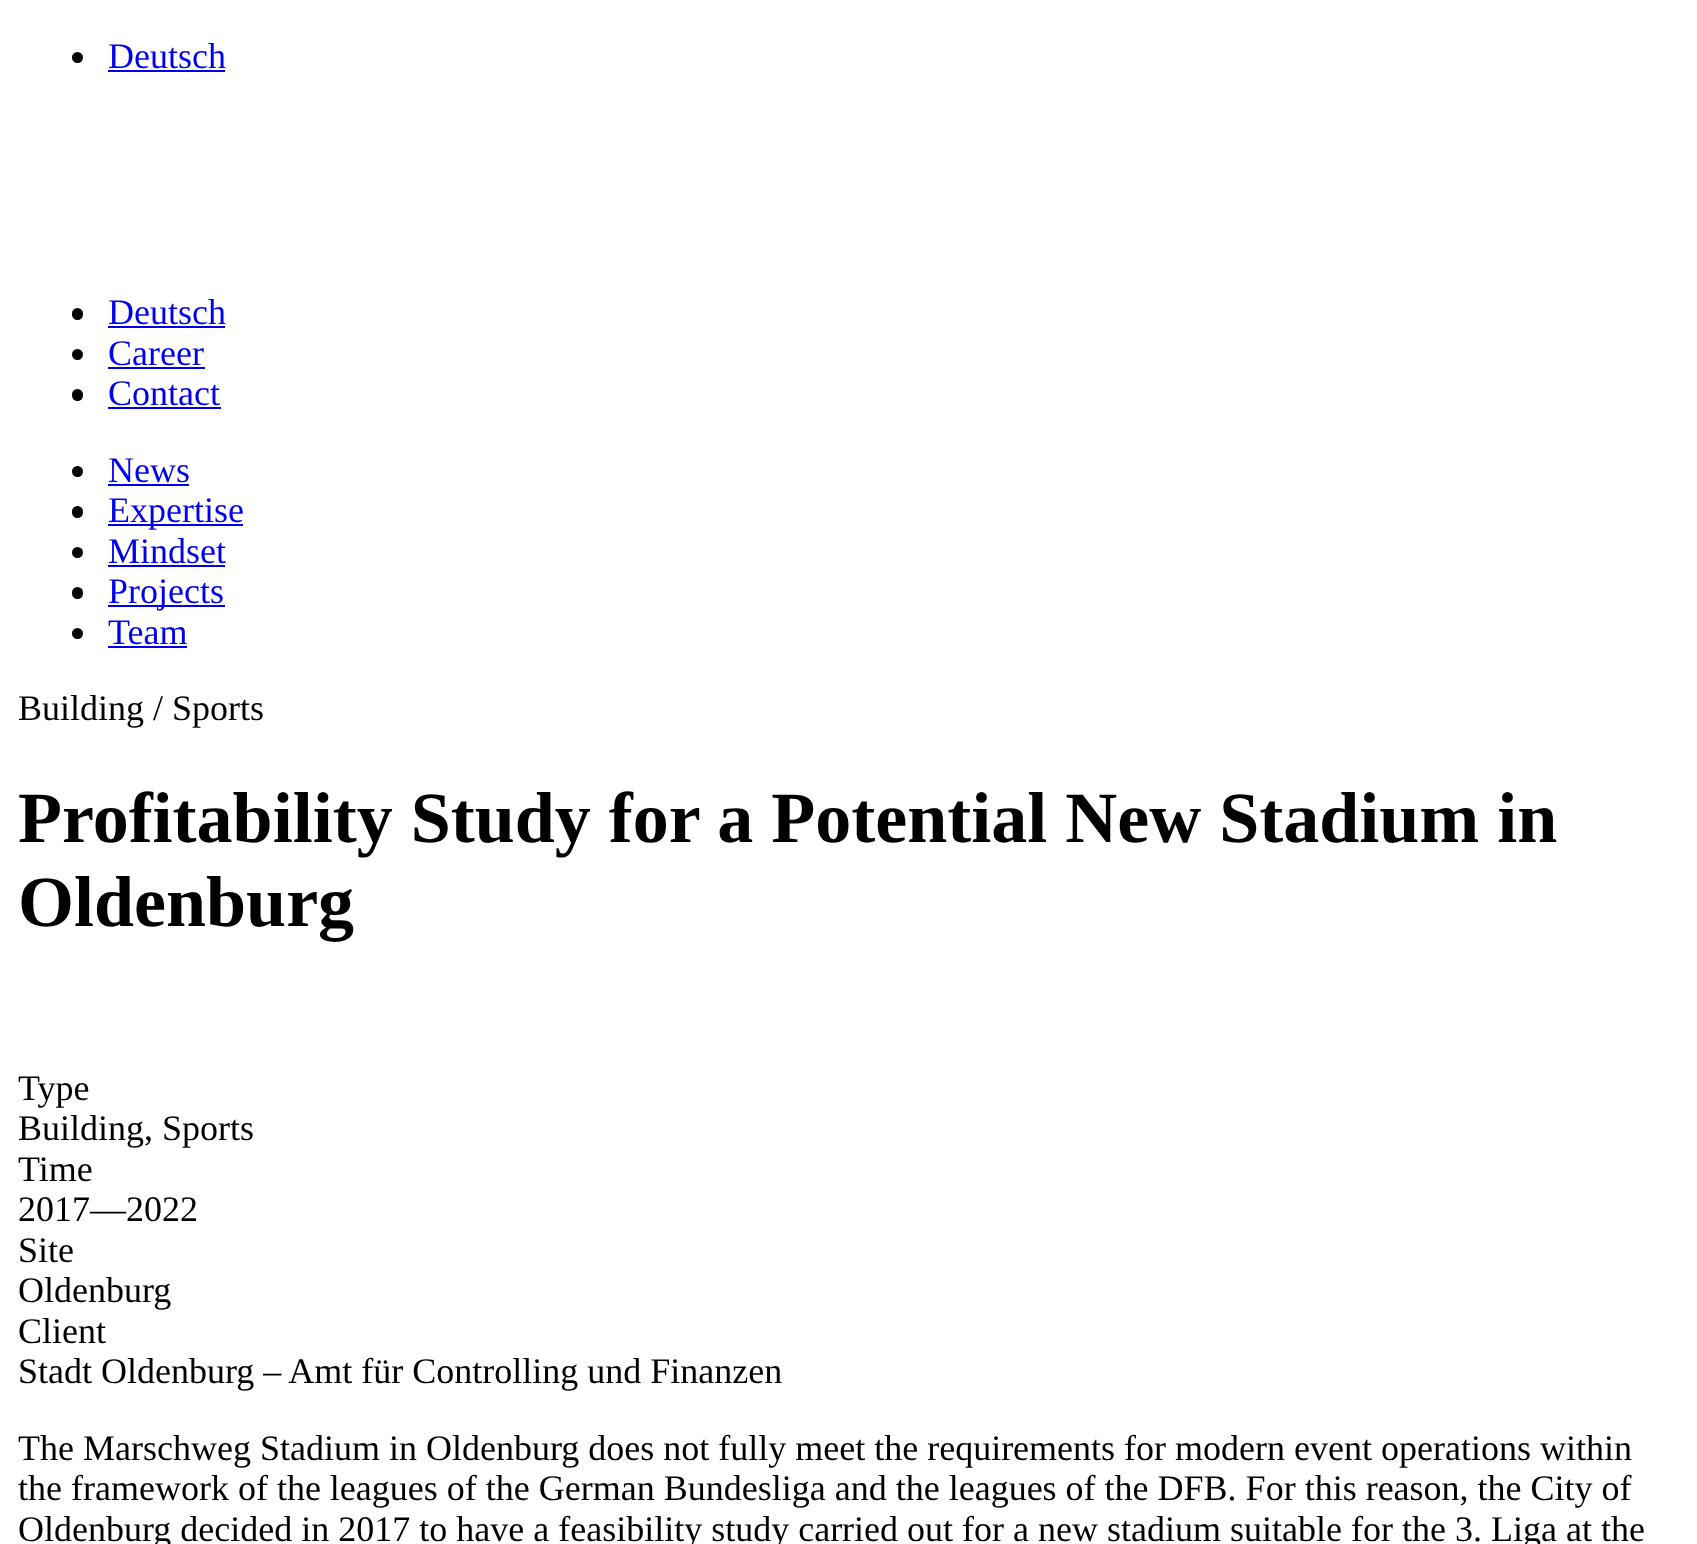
async function draw(canvas) {
  canvas.width = 1697;
  canvas.height = 1544;
  const ctx = canvas.getContext('2d');
  ctx.miterLimit = 4;
  ctx.fontKerning = 'normal';
  function label(s, x, y, font, color) {
    ctx.font = font;
    ctx.fillStyle = color;
    ctx.fillText(s, x, y);
  }
  function rect(x, y, w, h, color) {
    ctx.fillStyle = color;
    ctx.fillRect(x, y, w, h);
  }
  function roundedRect(x, y, w, h, r, color) {
    ctx.fillStyle = color;
    ctx.beginPath();
    ctx.roundRect(x, y, w, h, r);
    ctx.fill();
  }

  rect(0, 0, 1697, 1544, '#fff');
  ctx.fillStyle = '#000';
  ctx.beginPath();
  ctx.arc(77.5, 57.5, 5.5, 0, 2 * Math.PI);
  ctx.fill();
  label('Deutsch', 108, 68, '36px Liberation Serif', '#00e');
  rect(108, 70, 117, 2, '#00e');
  roundedRect(72, 308, 11, 12, 5.5, '#000');
  label('Deutsch', 108, 324, '36px Liberation Serif', '#00e');
  rect(108, 326, 117, 2, '#00e');
  ctx.fillStyle = '#000';
  ctx.beginPath();
  ctx.arc(77.5, 354.5, 5.5, 0, 2 * Math.PI);
  ctx.fill();
  label('Career', 108, 365, '36px Liberation Serif', '#00e');
  rect(108, 367, 97, 2, '#00e');
  roundedRect(72, 389, 11, 12, 5.5, '#000');
  label('Contact', 108, 405, '36px Liberation Serif', '#00e');
  rect(108, 407, 113, 2, '#00e');
  ctx.fillStyle = '#000';
  ctx.beginPath();
  ctx.arc(77.5, 471.5, 5.5, 0, 2 * Math.PI);
  ctx.fill();
  label('News', 108, 482, '36px Liberation Serif', '#00e');
  rect(108, 484, 81, 2, '#00e');
  roundedRect(72, 506, 11, 12, 5.5, '#000');
  rect(108, 524, 135, 2, '#00e');
  label('Expertise', 108, 522, '36px Liberation Serif', '#00e');
  ctx.fillStyle = '#000';
  ctx.beginPath();
  ctx.arc(77.5, 552.5, 5.5, 0, 2 * Math.PI);
  ctx.fill();
  label('Mindset', 108, 563, '36px Liberation Serif', '#00e');
  rect(108, 565, 117, 2, '#00e');
  roundedRect(72, 587, 11, 12, 5.5, '#000');
  rect(108, 605, 117, 2, '#00e');
  label('Projects', 108, 603, '36px Liberation Serif', '#00e');
  ctx.fillStyle = '#000';
  ctx.beginPath();
  ctx.arc(77.5, 633.5, 5.5, 0, 2 * Math.PI);
  ctx.fill();
  label('Team', 108, 644, '36px Liberation Serif', '#00e');
  rect(108, 646, 79, 2, '#00e');
  label('Building / Sports', 18, 720, '36px Liberation Serif', '#000');
  label('Profitability Study for a Potential New Stadium in', 18, 842, 'bold 72px Liberation Serif', '#000');
  label('Oldenburg', 18, 926, 'bold 72px Liberation Serif', '#000');
  label('Type', 18, 1100, '36px Liberation Serif', '#000');
  label('Building, Sports', 18, 1140, '36px Liberation Serif', '#000');
  label('Time', 18, 1181, '36px Liberation Serif', '#000');
  label('2017—2022', 18, 1221, '36px Liberation Serif', '#000');
  label('Site', 18, 1262, '36px Liberation Serif', '#000');
  label('Oldenburg', 18, 1302, '36px Liberation Serif', '#000');
  label('Client', 18, 1343, '36px Liberation Serif', '#000');
  label('Stadt Oldenburg – Amt für Controlling und Finanzen', 18, 1383, '36px Liberation Serif', '#000');
  label('The Marschweg Stadium in Oldenburg does not fully meet the requirements for modern event operations within', 18, 1460, '36px Liberation Serif', '#000');
  label('the framework of the leagues of the German Bundesliga and the leagues of the DFB. For this reason, the City of', 18, 1500, '36px Liberation Serif', '#000');
  label('Oldenburg decided in 2017 to have a feasibility study carried out for a new stadium suitable for the 3. Liga at the', 18, 1541, '36px Liberation Serif', '#000');
}

draw(document.querySelector('canvas'));
